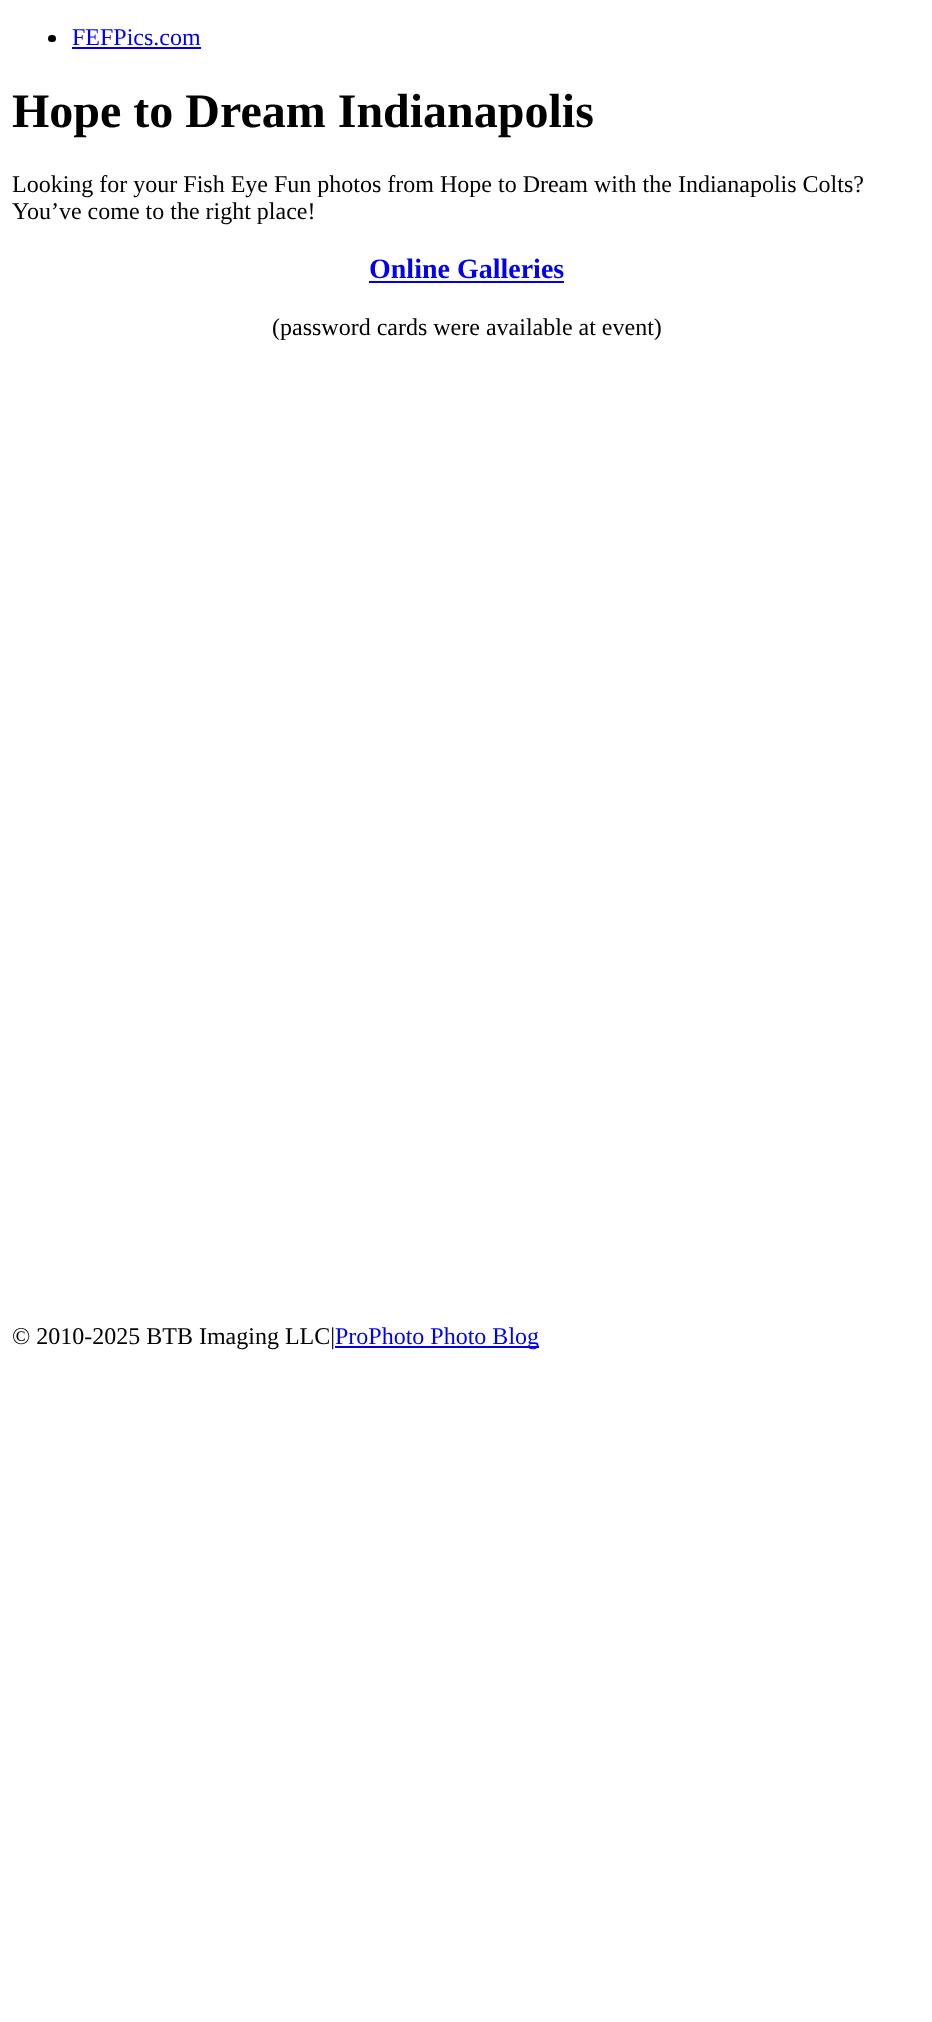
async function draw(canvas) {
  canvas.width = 932;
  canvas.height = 2022;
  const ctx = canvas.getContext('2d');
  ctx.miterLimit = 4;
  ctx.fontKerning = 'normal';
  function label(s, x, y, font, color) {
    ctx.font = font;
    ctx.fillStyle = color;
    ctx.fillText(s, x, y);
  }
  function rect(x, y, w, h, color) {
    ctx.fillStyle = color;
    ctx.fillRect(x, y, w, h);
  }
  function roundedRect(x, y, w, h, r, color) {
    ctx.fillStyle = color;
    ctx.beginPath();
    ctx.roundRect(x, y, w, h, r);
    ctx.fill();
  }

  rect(0, 0, 932, 2022, '#fff');
  roundedRect(48, 35, 8, 7, 3.5, '#000');
  label('FEFPics.com', 72, 45, '24px Liberation Serif', '#00e');
  rect(72, 47, 129, 2, '#00e');
  label('Hope to Dream Indianapolis', 12, 127, 'bold 48px Liberation Serif', '#000');
  label('Looking for your Fish Eye Fun photos from Hope to Dream with the Indianapolis Colts?', 12, 192, '24px Liberation Serif', '#000');
  label('You’ve come to the right place!', 12, 219, '24px Liberation Serif', '#000');
  label('Online Galleries', 369, 278, 'bold 28px Liberation Serif', '#00e');
  rect(369, 281, 195, 2, '#00e');
  label('(password cards were available at event)', 272, 335, '24px Liberation Serif', '#000');
  label('© 2010-2025 BTB Imaging LLC|', 12, 1344, '24px Liberation Serif', '#000');
  rect(335, 1346, 204, 2, '#00e');
  label('ProPhoto Photo Blog', 335, 1344, '24px Liberation Serif', '#00e');
}

draw(document.querySelector('canvas'));
